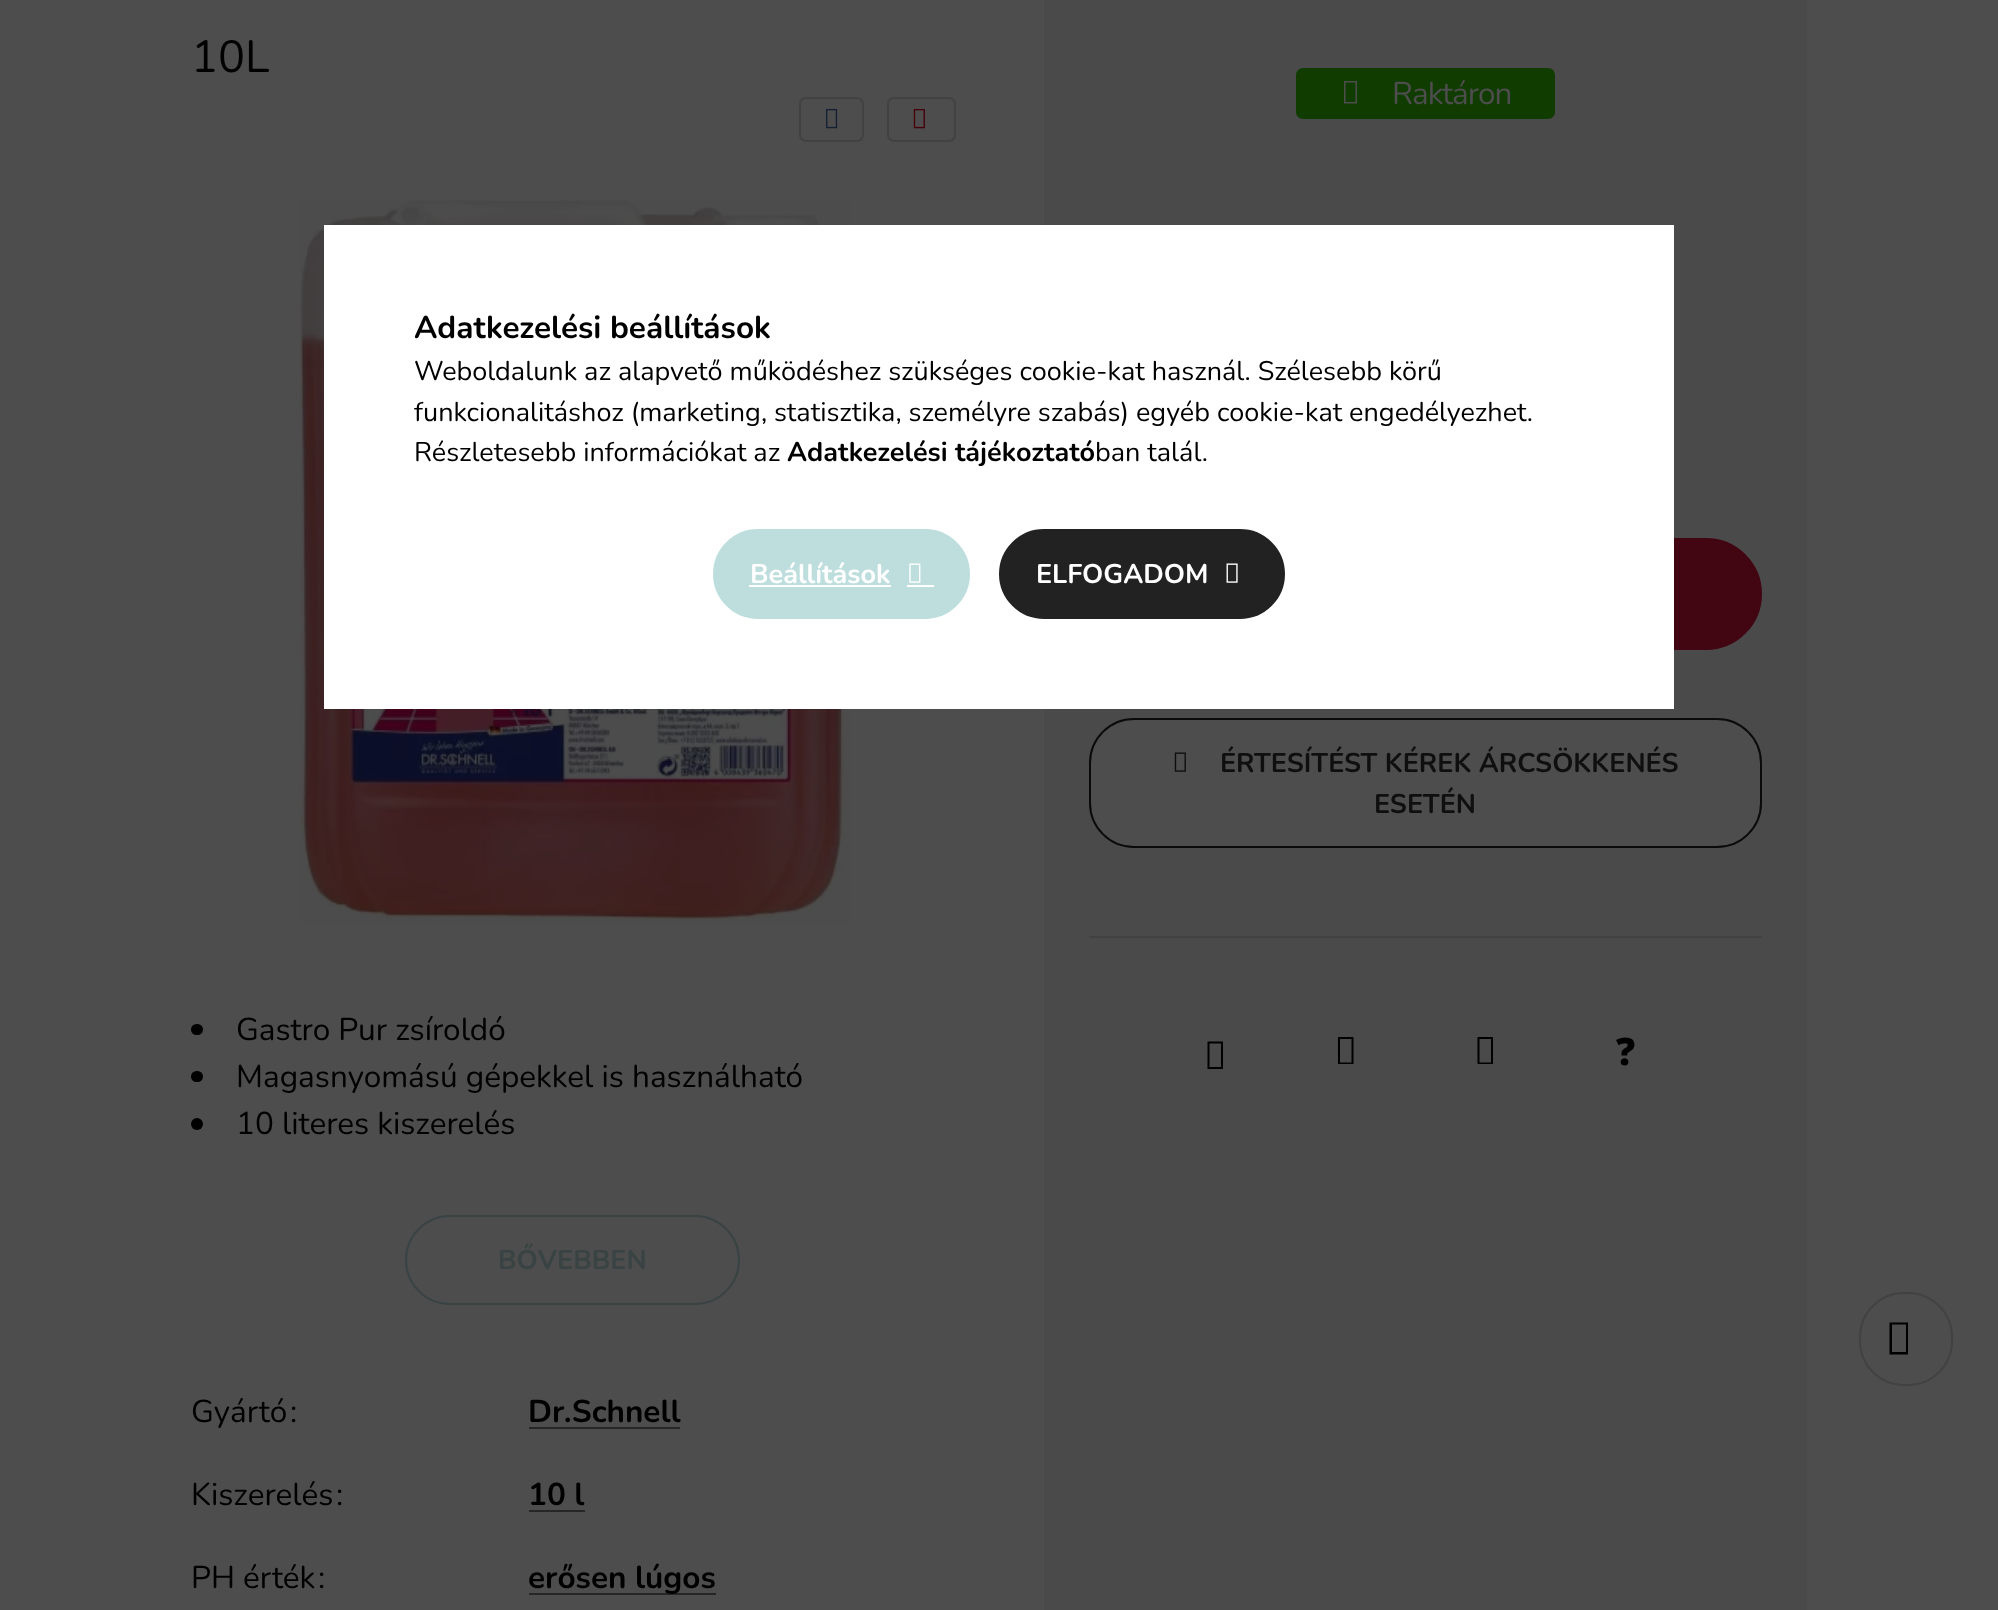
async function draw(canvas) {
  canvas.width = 1998;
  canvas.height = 1610;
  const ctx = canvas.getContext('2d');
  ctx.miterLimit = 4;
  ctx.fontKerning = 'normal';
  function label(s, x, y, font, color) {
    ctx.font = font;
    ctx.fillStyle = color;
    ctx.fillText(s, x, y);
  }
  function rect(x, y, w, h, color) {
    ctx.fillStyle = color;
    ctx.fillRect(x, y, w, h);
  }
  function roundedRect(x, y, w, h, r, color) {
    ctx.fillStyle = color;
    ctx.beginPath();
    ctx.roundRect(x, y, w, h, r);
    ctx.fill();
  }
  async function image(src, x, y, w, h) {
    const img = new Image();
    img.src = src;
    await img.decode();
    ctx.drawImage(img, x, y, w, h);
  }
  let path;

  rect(0, 0, 1998, 1610, '#4d4d4d');
  label('10L', 191, 72, '45px Nunito', '#000');
  ctx.beginPath();
  ctx.roundRect(800, 98, 63, 43, 6);
  ctx.strokeStyle = '#424242';
  ctx.lineWidth = 2;
  ctx.stroke();
  await image('assets/img1.png', 826, 108, 12, 21);
  ctx.beginPath();
  ctx.roundRect(888, 98, 67, 43, 6);
  ctx.stroke();
  await image('assets/img2.png', 913, 108, 12, 21);
  await image('assets/img3.png', 300, 200, 550, 723);
  roundedRect(191, 1024, 12, 11, 5.5, '#000');
  label('Gastro Pur zsíroldó', 236, 1040, '31.5px Nunito', '#000');
  roundedRect(191, 1071, 12, 11, 5.5, '#000');
  label('Magasnyomású gépekkel is használható', 236, 1087, '31.5px Nunito', '#000');
  ctx.beginPath();
  ctx.arc(197, 1124, 6, 0, 2 * Math.PI);
  ctx.fill();
  label('10 literes kiszerelés', 236, 1134, '31.5px Nunito', '#000');
  ctx.beginPath();
  ctx.roundRect(406, 1216, 333, 88, 44);
  ctx.strokeStyle = '#394343';
  ctx.stroke();
  label('BŐVEBBEN', 498, 1269, 'bold 27px Nunito', '#394343');
  label('Gyártó', 191, 1422, '31.5px Nunito', '#000');
  label(':', 290, 1422, '31.5px Nunito', '#000');
  label('Dr.Schnell', 528, 1422, 'bold 31.5px Nunito', '#000');
  rect(529, 1427, 151, 2, '#262626');
  label('Kiszerelés', 191, 1505, '31.5px Nunito', '#000');
  label(':', 336, 1505, '31.5px Nunito', '#000');
  label('10 l', 528, 1505, 'bold 31.5px Nunito', '#000');
  rect(529, 1510, 56, 2, '#262626');
  label('PH érték', 191, 1588, '31.5px Nunito', '#000');
  label(':', 318, 1588, '31.5px Nunito', '#000');
  rect(529, 1593, 187, 2, '#262626');
  label('erősen lúgos', 528, 1588, 'bold 31.5px Nunito', '#000');
  rect(1044, 0, 763, 1610, '#4a4a4a');
  roundedRect(1296, 68, 259, 51, 7, '#103c00');
  ctx.fillStyle = '#4d4d4d';
  path = new Path2D('M1344 103.5V81H1357V103.5ZM1345.5 102H1355.5V82.5H1345.5Z');
  ctx.fill(path);
  ctx.letterSpacing = '-1px';
  label('Raktáron', 1392, 104, '31.5px Nunito', '#4d4d4d');
  ctx.fillStyle = '#420612';
  ctx.beginPath();
  ctx.roundRect(1331, 539, 430, 110, 55);
  ctx.fill();
  ctx.strokeStyle = '#420612';
  ctx.stroke();
  ctx.fillStyle = '#4d4d4d';
  ctx.beginPath();
  ctx.roundRect(1090, 719, 671, 128, 44);
  ctx.fill();
  ctx.strokeStyle = '#0a0a0a';
  ctx.stroke();
  await image('assets/img4.png', 1174, 752, 12, 20);
  ctx.letterSpacing = '0px';
  label('ÉRTESÍTÉST KÉREK ÁRCSÖKKENÉS', 1220, 772, 'bold 27px Nunito', '#0f0f0f');
  label('ESETÉN', 1374, 813, 'bold 27px Nunito', '#0f0f0f');
  rect(1089, 936, 673, 2, '#424242');
  ctx.fillStyle = '#000';
  path = new Path2D('M1207.5 1069V1041.5H1223V1069ZM1209.5 1067H1221V1043.5H1209.5Z');
  ctx.fill(path);
  path = new Path2D('M1338 1064V1037H1353.5V1064ZM1340 1062.5H1351.5V1039H1340Z');
  ctx.fill(path);
  path = new Path2D('M1477.5 1064V1037H1493V1064ZM1479.5 1062.5H1491V1039H1479.5Z');
  ctx.fill(path);
  label('?', 1616, 1065, '900 38px Noto Sans', '#000');
  rect(324, 225, 1350, 484, '#fff');
  label('Adatkezelési beállítások', 414, 338, 'bold 31.5px Nunito', '#000');
  label('Weboldalunk az alapvető működéshez szükséges cookie-kat használ. Szélesebb körű', 414, 380, '27px Nunito', '#000');
  label('funkcionalitáshoz (marketing, statisztika, személyre szabás) egyéb cookie-kat engedélyezhet.', 414, 421, '27px Nunito', '#000');
  label('Részletesebb információkat az', 414, 461, '27px Nunito', '#000');
  label('Adatkezelési tájékoztató', 787, 461, 'bold 27px Nunito', '#000');
  label('ban talál.', 1095, 461, '27px Nunito', '#000');
  ctx.fillStyle = '#bedede';
  ctx.beginPath();
  ctx.roundRect(714, 530, 255, 88, 44);
  ctx.fill();
  ctx.strokeStyle = '#bedede';
  ctx.stroke();
  label('Beállítások', 750, 583, 'bold 27px Nunito', '#fff');
  rect(749, 585, 142, 2, '#fff');
  await image('assets/img5.png', 909, 563, 12, 20);
  rect(907, 585, 27, 2, '#fff');
  ctx.fillStyle = '#222';
  ctx.beginPath();
  ctx.roundRect(1000, 530, 284, 88, 44);
  ctx.fill();
  ctx.strokeStyle = '#222';
  ctx.stroke();
  label('ELFOGADOM', 1036, 583, 'bold 27px Nunito', '#fff');
  await image('assets/img6.png', 1226, 563, 12, 20);
  ctx.beginPath();
  ctx.roundRect(1860, 1293, 92, 92, 44);
  ctx.strokeStyle = '#424242';
  ctx.stroke();
  ctx.fillStyle = '#000';
  path = new Path2D('M1889.5 1354.5V1322.5H1908V1354.5ZM1892 1352H1906V1324.5H1892Z');
  ctx.fill(path);
}

draw(document.querySelector('canvas'));
